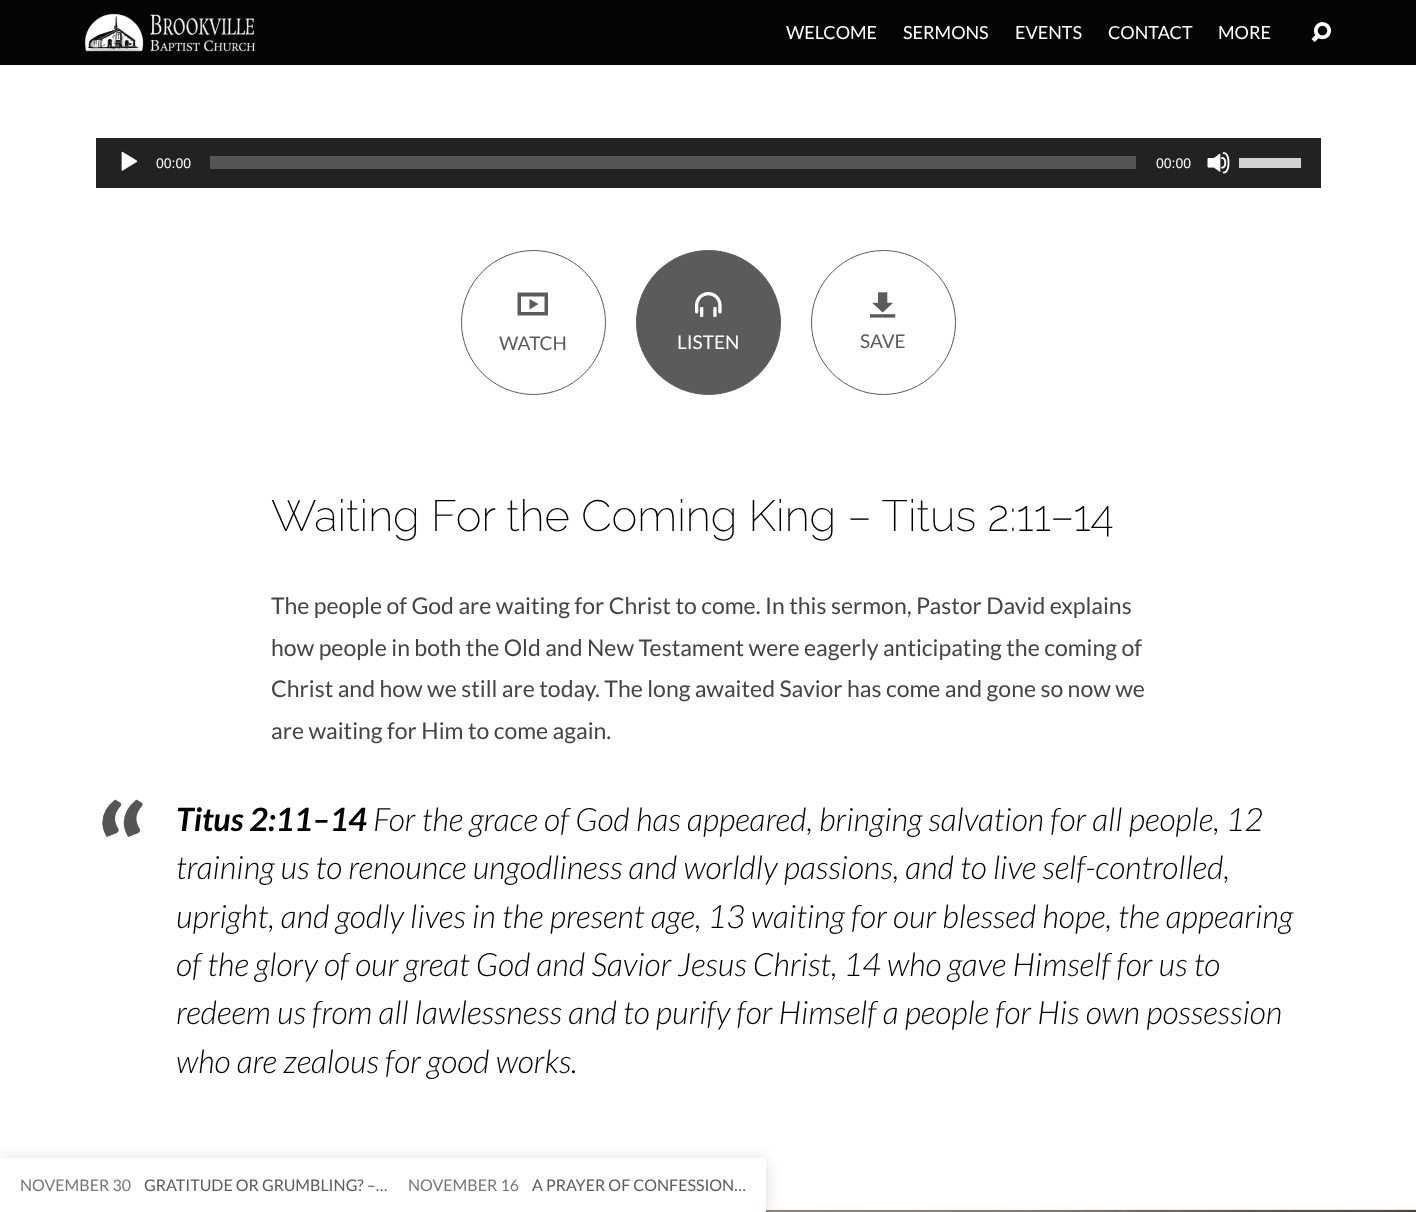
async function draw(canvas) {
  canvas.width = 1416;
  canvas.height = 1212;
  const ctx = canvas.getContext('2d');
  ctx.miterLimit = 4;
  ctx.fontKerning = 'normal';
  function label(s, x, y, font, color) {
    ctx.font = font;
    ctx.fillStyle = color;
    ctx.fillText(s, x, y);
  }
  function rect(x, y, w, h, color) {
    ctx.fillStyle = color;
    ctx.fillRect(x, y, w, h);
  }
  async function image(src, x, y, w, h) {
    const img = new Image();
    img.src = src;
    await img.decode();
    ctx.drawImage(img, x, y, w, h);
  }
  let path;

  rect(0, 0, 1416, 1212, '#fff');
  rect(0, 0, 1416, 65, '#050505');
  await image('assets/img1.png', 85, 13, 171, 39);
  label('WELCOME', 786, 39, '18px Lato', '#fff');
  label('SERMONS', 903, 39, '18px Lato', '#fff');
  label('EVENTS', 1015, 39, '18px Lato', '#fff');
  label('CONTACT', 1108, 39, '18px Lato', '#fff');
  label('MORE', 1218, 39, '18px Lato', '#fff');
  await image('assets/img2.png', 1311, 22, 20, 20);
  rect(96, 138, 1225, 50, '#222');
  await image('assets/img3.png', 121, 151, 17, 20);
  label('00:00', 156, 168, '14px Liberation Sans', '#fff');
  rect(210, 156, 926, 13, '#555');
  label('00:00', 1156, 168, '14px Liberation Sans', '#fff');
  await image('assets/img4.png', 1207, 152, 23, 22);
  rect(1239, 158, 62, 10, '#d2d2d2');
  ctx.beginPath();
  ctx.arc(533.5, 322.5, 72, 0, 2 * Math.PI);
  ctx.strokeStyle = '#5b5b5b';
  ctx.stroke();
  ctx.fillStyle = '#5b5b5b';
  path = new Path2D('M517.5 292.5H548V315.5H517.5ZM521 296.5V312H544.5V296.5ZM529.5 299L538.5 304L529.5 309.5Z');
  ctx.fill(path);
  label('WATCH', 499, 350, '19px Lato', '#5b5b5b');
  ctx.beginPath();
  ctx.arc(708.5, 322.5, 72, 0, 2 * Math.PI);
  ctx.fill();
  ctx.stroke();
  await image('assets/img5.png', 695, 292, 27, 25);
  label('LISTEN', 677, 349, '19px Lato', '#fff');
  ctx.beginPath();
  ctx.arc(883.5, 322.5, 72, 0, 2 * Math.PI);
  ctx.stroke();
  await image('assets/img6.png', 870, 292, 26, 26);
  label('SAVE', 860, 348, '19px Lato', '#5b5b5b');
  label('Waiting For the Coming King – Titus 2:11–14', 271, 531, '200 43.75px Raleway', '#000');
  label('The people of God are waiting for Christ to come. In this sermon, Pastor David explains', 271, 614, '23px Lato', '#444');
  label('how people in both the Old and New Testament were eagerly anticipating the coming of', 271, 656, '23px Lato', '#444');
  label('Christ and how we still are today. The long awaited Savior has come and gone so now we', 271, 697, '23px Lato', '#444');
  label('are waiting for Him to come again.', 271, 739, '23px Lato', '#444');
  label('“', 96, 900, 'bold 129px Lato', '#555');
  label('Titus 2:11–14', 176, 831, 'italic bold 32.2px Lato', '#000');
  label('For the grace of God has appeared, bringing salvation for all people, 12', 373, 831, 'italic 300 32.2px Lato', '#000');
  label('training us to renounce ungodliness and worldly passions, and to live self-controlled,', 176, 879, 'italic 300 32.2px Lato', '#000');
  label('upright, and godly lives in the present age, 13 waiting for our blessed hope, the appearing', 176, 928, 'italic 300 32.2px Lato', '#000');
  label('of the glory of our great God and Savior Jesus Christ, 14 who gave Himself for us to', 176, 976, 'italic 300 32.2px Lato', '#000');
  label('redeem us from all lawlessness and to purify for Himself a people for His own possession', 176, 1024, 'italic 300 32.2px Lato', '#000');
  label('who are zealous for good works.', 176, 1073, 'italic 300 32.2px Lato', '#000');
  rect(766, 1210, 650, 2, '#050505');
  await image('assets/img7.png', 766, 1209, 650, 3);
  ctx.fillStyle = '#00000026';
  ctx.filter = 'blur(7.5px)';
  ctx.beginPath();
  ctx.roundRect(0, 1160, 766, 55, 5);
  ctx.fill();
  ctx.filter = 'none';
  ctx.fillStyle = '#fff';
  path = new Path2D('M0 1158H761C764 1158 766 1160 766 1163V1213H0Z');
  ctx.fill(path);
  label('NOVEMBER 30', 20, 1191, '16px Lato', '#777');
  label('GRATITUDE OR GRUMBLING? –…', 144, 1191, '16px Lato', '#5b5b5b');
  label('NOVEMBER 16', 408, 1191, '16px Lato', '#777');
  label('A PRAYER OF CONFESSION…', 532, 1191, '16px Lato', '#5b5b5b');
}

draw(document.querySelector('canvas'));
